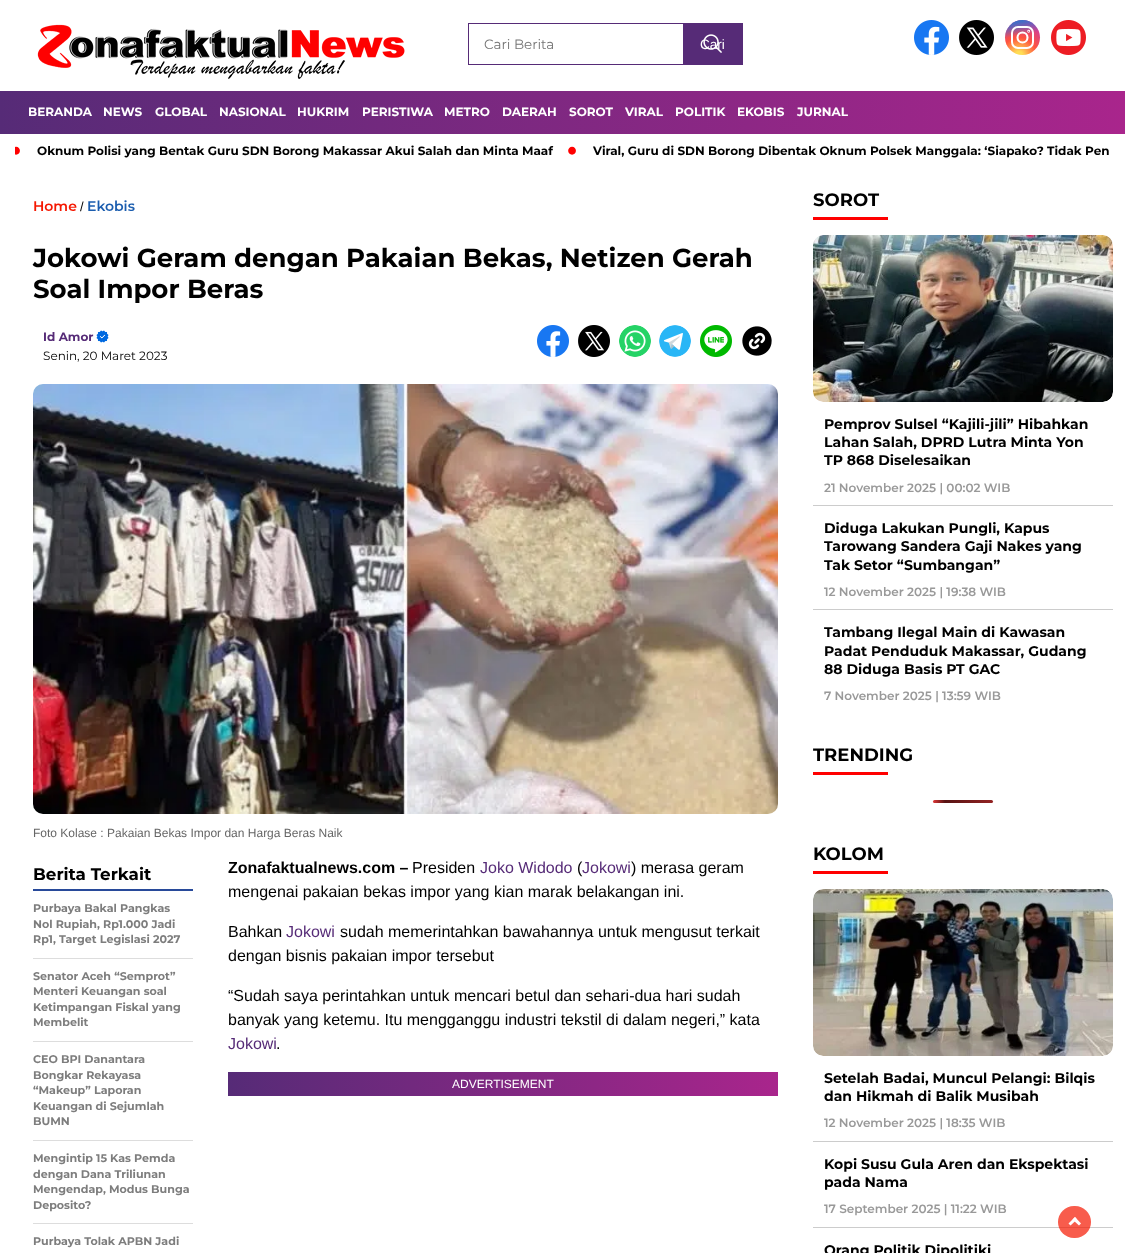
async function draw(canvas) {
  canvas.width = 1125;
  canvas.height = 1253;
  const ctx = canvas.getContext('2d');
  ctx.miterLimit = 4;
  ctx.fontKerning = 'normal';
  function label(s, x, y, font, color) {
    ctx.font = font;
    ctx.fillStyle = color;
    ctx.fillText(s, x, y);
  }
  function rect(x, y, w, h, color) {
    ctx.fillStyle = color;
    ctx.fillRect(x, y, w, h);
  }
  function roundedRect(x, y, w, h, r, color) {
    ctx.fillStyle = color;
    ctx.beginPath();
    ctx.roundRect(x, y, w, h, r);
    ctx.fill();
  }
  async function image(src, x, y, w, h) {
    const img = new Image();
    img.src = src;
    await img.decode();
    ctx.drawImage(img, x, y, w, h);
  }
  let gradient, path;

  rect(0, 0, 1125, 1253, '#fff');
  await image('assets/img1.png', 37, 24, 368, 55);
  ctx.strokeStyle = '#562b77';
  ctx.strokeRect(468.5, 23.5, 215, 41);
  label('Cari Berita', 484, 49, '13.5px Montserrat', '#757575');
  rect(684, 23, 59, 42, '#562b77');
  await image('assets/img2.png', 703, 34, 19, 19);
  label('Cari', 700, 49, '13.5px Liberation Sans', '#fff');
  await image('assets/img3.png', 914, 20, 35, 35);
  await image('assets/img4.png', 959, 20, 35, 35);
  gradient = ctx.createRadialGradient(1019, 55, 0, 1019, 55, 35);
  gradient.addColorStop(0.1, '#fd5');
  gradient.addColorStop(0.5, '#ff543e');
  gradient.addColorStop(1, '#c837ab');
  ctx.fillStyle = gradient;
  ctx.beginPath();
  ctx.arc(1022.5, 37.5, 17.5, 0, 2 * Math.PI);
  ctx.fill();
  gradient = ctx.createLinearGradient(1005, 20, 1012, 55);
  gradient.addColorStop(0.1, '#3771c8');
  gradient.addColorStop(0.5, '#3771c800');
  ctx.fillStyle = gradient;
  ctx.beginPath();
  ctx.arc(1022.5, 37.5, 17.5, 0, 2 * Math.PI);
  ctx.fill();
  ctx.beginPath();
  ctx.roundRect(1012, 27, 21, 21, 6);
  ctx.strokeStyle = '#fff';
  ctx.lineWidth = 2;
  ctx.stroke();
  ctx.beginPath();
  ctx.arc(1022.5, 37.5, 5, 0, 2 * Math.PI);
  ctx.lineWidth = 2.1;
  ctx.stroke();
  ctx.beginPath();
  ctx.arc(1028.7, 31.3, 0.4, 0, 2 * Math.PI);
  ctx.stroke();
  await image('assets/img5.png', 1051, 20, 35, 35);
  gradient = ctx.createLinearGradient(0, 113, 1125, 112);
  gradient.addColorStop(0, '#562b77');
  gradient.addColorStop(1, '#a9258c');
  ctx.fillStyle = gradient;
  ctx.fillRect(0, 91, 1125, 43);
  label('BERANDA', 28, 116, 'bold 12px Montserrat', '#fff');
  label('NEWS', 103, 116, 'bold 12px Montserrat', '#fff');
  label('GLOBAL', 155, 116, 'bold 12px Montserrat', '#fff');
  label('NASIONAL', 219, 116, 'bold 12px Montserrat', '#fff');
  label('HUKRIM', 297, 116, 'bold 12px Montserrat', '#fff');
  label('PERISTIWA', 362, 116, 'bold 12px Montserrat', '#fff');
  label('METRO', 444, 116, 'bold 12px Montserrat', '#fff');
  label('DAERAH', 502, 116, 'bold 12px Montserrat', '#fff');
  label('SOROT', 569, 116, 'bold 12px Montserrat', '#fff');
  label('VIRAL', 625, 116, 'bold 12px Montserrat', '#fff');
  label('POLITIK', 675, 116, 'bold 12px Montserrat', '#fff');
  label('EKOBIS', 737, 116, 'bold 12px Montserrat', '#fff');
  label('JURNAL', 797, 116, 'bold 12px Montserrat', '#fff');
  ctx.save();
  ctx.beginPath();
  ctx.rect(15, 134, 1095, 30);
  ctx.clip();
  label('·', 10, 162, 'bold 40px Montserrat', '#f00');
  ctx.restore();
  label('Oknum Polisi yang Bentak Guru SDN Borong Makassar Akui Salah dan Minta Maaf', 37, 155, 'bold 12px Montserrat', '#000');
  label('·', 566, 162, 'bold 40px Montserrat', '#f00');
  label('Viral, Guru di SDN Borong Dibentak Oknum Polsek Manggala: ‘Siapako? Tidak Pen', 593, 155, 'bold 12px Montserrat', '#000');
  label('Home', 33, 211, '600 14px Montserrat', '#f51700');
  label('/', 80, 211, '13px Liberation Sans', '#000');
  label('Ekobis', 87, 211, '600 14px Montserrat', '#1b5daf');
  label('Jokowi Geram dengan Pakaian Bekas, Netizen Gerah', 33, 267, 'bold 26px Montserrat', '#000');
  label('Soal Impor Beras', 33, 298, 'bold 26px Montserrat', '#000');
  label('Id Amor', 43, 341, 'bold 12px Montserrat', '#562b77');
  await image('assets/img6.png', 96, 330, 13, 13);
  label('Senin, 20 Maret 2023', 43, 360, '12px Montserrat', '#000');
  await image('assets/img7.png', 537, 325, 32, 32);
  await image('assets/img8.png', 578, 325, 32, 32);
  await image('assets/img9.png', 619, 325, 32, 32);
  await image('assets/img10.png', 659, 325, 32, 32);
  await image('assets/img11.png', 700, 325, 32, 32);
  await image('assets/img12.png', 742, 326, 30, 30);
  await image('assets/img13.png', 33, 384, 745, 430);
  label('Foto Kolase : Pakaian Bekas Impor dan Harga Beras Naik', 33, 837, '12px Liberation Sans', '#666');
  rect(33, 889, 160, 2, '#284a9a');
  label('Berita Terkait', 33, 880, 'bold 16.75px Montserrat', '#000');
  rect(33, 958, 160, 1, '#ddd');
  label('Purbaya Bakal Pangkas', 33, 912, 'bold 11.1px Montserrat', '#7d7d7d');
  label('Nol Rupiah, Rp1.000 Jadi', 33, 928, 'bold 11.1px Montserrat', '#7d7d7d');
  label('Rp1, Target Legislasi 2027', 33, 943, 'bold 11.1px Montserrat', '#7d7d7d');
  rect(33, 1041, 160, 1, '#ddd');
  label('Senator Aceh “Semprot”', 33, 980, 'bold 11.1px Montserrat', '#7d7d7d');
  label('Menteri Keuangan soal', 33, 995, 'bold 11.1px Montserrat', '#7d7d7d');
  label('Ketimpangan Fiskal yang', 33, 1011, 'bold 11.1px Montserrat', '#7d7d7d');
  label('Membelit', 33, 1026, 'bold 11.1px Montserrat', '#7d7d7d');
  rect(33, 1140, 160, 1, '#ddd');
  label('CEO BPI Danantara', 33, 1063, 'bold 11.1px Montserrat', '#7d7d7d');
  label('Bongkar Rekayasa', 33, 1079, 'bold 11.1px Montserrat', '#7d7d7d');
  label('“Makeup” Laporan', 33, 1094, 'bold 11.1px Montserrat', '#7d7d7d');
  label('Keuangan di Sejumlah', 33, 1110, 'bold 11.1px Montserrat', '#7d7d7d');
  label('BUMN', 33, 1125, 'bold 11.1px Montserrat', '#7d7d7d');
  rect(33, 1223, 160, 1, '#ddd');
  label('Mengintip 15 Kas Pemda', 33, 1162, 'bold 11.1px Montserrat', '#7d7d7d');
  label('dengan Dana Triliunan', 33, 1178, 'bold 11.1px Montserrat', '#7d7d7d');
  label('Mengendap, Modus Bunga', 33, 1193, 'bold 11.1px Montserrat', '#7d7d7d');
  label('Deposito?', 33, 1209, 'bold 11.1px Montserrat', '#7d7d7d');
  label('Purbaya Tolak APBN Jadi', 33, 1245, 'bold 11.1px Montserrat', '#7d7d7d');
  label('Zonafaktualnews.com –', 228, 873, 'bold 16px Liberation Sans', '#000');
  label('Presiden', 412, 873, '16px Liberation Sans', '#000');
  label('Joko Widodo', 480, 873, '16px Liberation Sans', '#562b77');
  label('(', 577, 873, '16px Liberation Sans', '#000');
  label('Jokowi', 582, 873, '16px Liberation Sans', '#562b77');
  label(') merasa geram', 631, 873, '16px Liberation Sans', '#000');
  label('mengenai pakaian bekas impor yang kian marak belakangan ini.', 228, 897, '16px Liberation Sans', '#000');
  label('Bahkan', 228, 937, '16px Liberation Sans', '#000');
  label('Jokowi', 286, 937, '16px Liberation Sans', '#562b77');
  label('sudah memerintahkan bawahannya untuk mengusut terkait', 340, 937, '16px Liberation Sans', '#000');
  label('dengan bisnis pakaian impor tersebut', 228, 961, '16px Liberation Sans', '#000');
  label('“Sudah saya perintahkan untuk mencari betul dan sehari-dua hari sudah', 228, 1001, '16px Liberation Sans', '#000');
  label('banyak yang ketemu. Itu mengganggu industri tekstil di dalam negeri,” kata', 228, 1025, '16px Liberation Sans', '#000');
  label('Jokowi', 228, 1049, '16px Liberation Sans', '#562b77');
  label('.', 276, 1049, '16px Liberation Sans', '#000');
  gradient = ctx.createLinearGradient(228, 1084, 778, 1084);
  gradient.addColorStop(0, '#562b77');
  gradient.addColorStop(1, '#a9258c');
  ctx.fillStyle = gradient;
  ctx.fillRect(228, 1072, 550, 24);
  label('ADVERTISEMENT', 452, 1088, '12px Liberation Sans', '#fff');
  label('SOROT', 813, 206, 'bold 18px Montserrat', '#000');
  rect(813, 217, 75, 3, '#f00');
  rect(813, 505, 300, 1, '#ccc');
  await image('assets/img14.png', 813, 235, 300, 167);
  label('Pemprov Sulsel “Kajili-jili” Hibahkan', 824, 429, 'bold 14px Montserrat', '#000');
  label('Lahan Salah, DPRD Lutra Minta Yon', 824, 447, 'bold 14px Montserrat', '#000');
  label('TP 868 Diselesaikan', 824, 465, 'bold 14px Montserrat', '#000');
  label('21 November 2025 | 00:02 WIB', 824, 492, '600 12px Montserrat', '#999');
  rect(813, 609, 300, 1, '#ccc');
  label('Diduga Lakukan Pungli, Kapus', 824, 533, 'bold 14px Montserrat', '#000');
  label('Tarowang Sandera Gaji Nakes yang', 824, 551, 'bold 14px Montserrat', '#000');
  label('Tak Setor “Sumbangan”', 824, 570, 'bold 14px Montserrat', '#000');
  label('12 November 2025 | 19:38 WIB', 824, 596, '600 12px Montserrat', '#999');
  label('Tambang Ilegal Main di Kawasan', 824, 637, 'bold 14px Montserrat', '#000');
  label('Padat Penduduk Makassar, Gudang', 824, 656, 'bold 14px Montserrat', '#000');
  label('88 Diduga Basis PT GAC', 824, 674, 'bold 14px Montserrat', '#000');
  label('7 November 2025 | 13:59 WIB', 824, 700, '600 12px Montserrat', '#999');
  label('TRENDING', 813, 761, 'bold 18px Montserrat', '#000');
  rect(813, 772, 75, 3, '#f00');
  gradient = ctx.createLinearGradient(933, 802, 1053, 802);
  gradient.addColorStop(0, '#dd3737');
  gradient.addColorStop(0.1, '#571313');
  gradient.addColorStop(1, '#dd3737');
  ctx.fillStyle = gradient;
  ctx.beginPath();
  ctx.roundRect(933, 800, 60, 3, 1.5);
  ctx.fill();
  label('KOLOM', 813, 860, 'bold 18px Montserrat', '#000');
  rect(813, 871, 75, 3, '#f00');
  rect(813, 1141, 300, 1, '#ccc');
  await image('assets/img15.png', 813, 889, 300, 167);
  label('Setelah Badai, Muncul Pelangi: Bilqis', 824, 1083, 'bold 14px Montserrat', '#000');
  label('dan Hikmah di Balik Musibah', 824, 1101, 'bold 14px Montserrat', '#000');
  label('12 November 2025 | 18:35 WIB', 824, 1127, '600 12px Montserrat', '#999');
  rect(813, 1227, 300, 1, '#ccc');
  label('Kopi Susu Gula Aren dan Ekspektasi', 824, 1169, 'bold 14px Montserrat', '#000');
  label('pada Nama', 824, 1187, 'bold 14px Montserrat', '#000');
  label('17 September 2025 | 11:22 WIB', 824, 1213, '600 12px Montserrat', '#999');
  label('Orang Politik Dipolitiki', 824, 1255, 'bold 14px Montserrat', '#000');
  roundedRect(1058, 1206, 33, 32, 16, '#f51700b3');
  ctx.fillStyle = '#fff';
  path = new Path2D('M1070.5 1225.5L1068.5 1223.5L1075 1217L1077 1219.5Z');
  ctx.fill(path);
  path = new Path2D('M1079 1225.5L1072.5 1219.5L1075 1217L1081 1223.5Z');
  ctx.fill(path);
}

draw(document.querySelector('canvas'));
